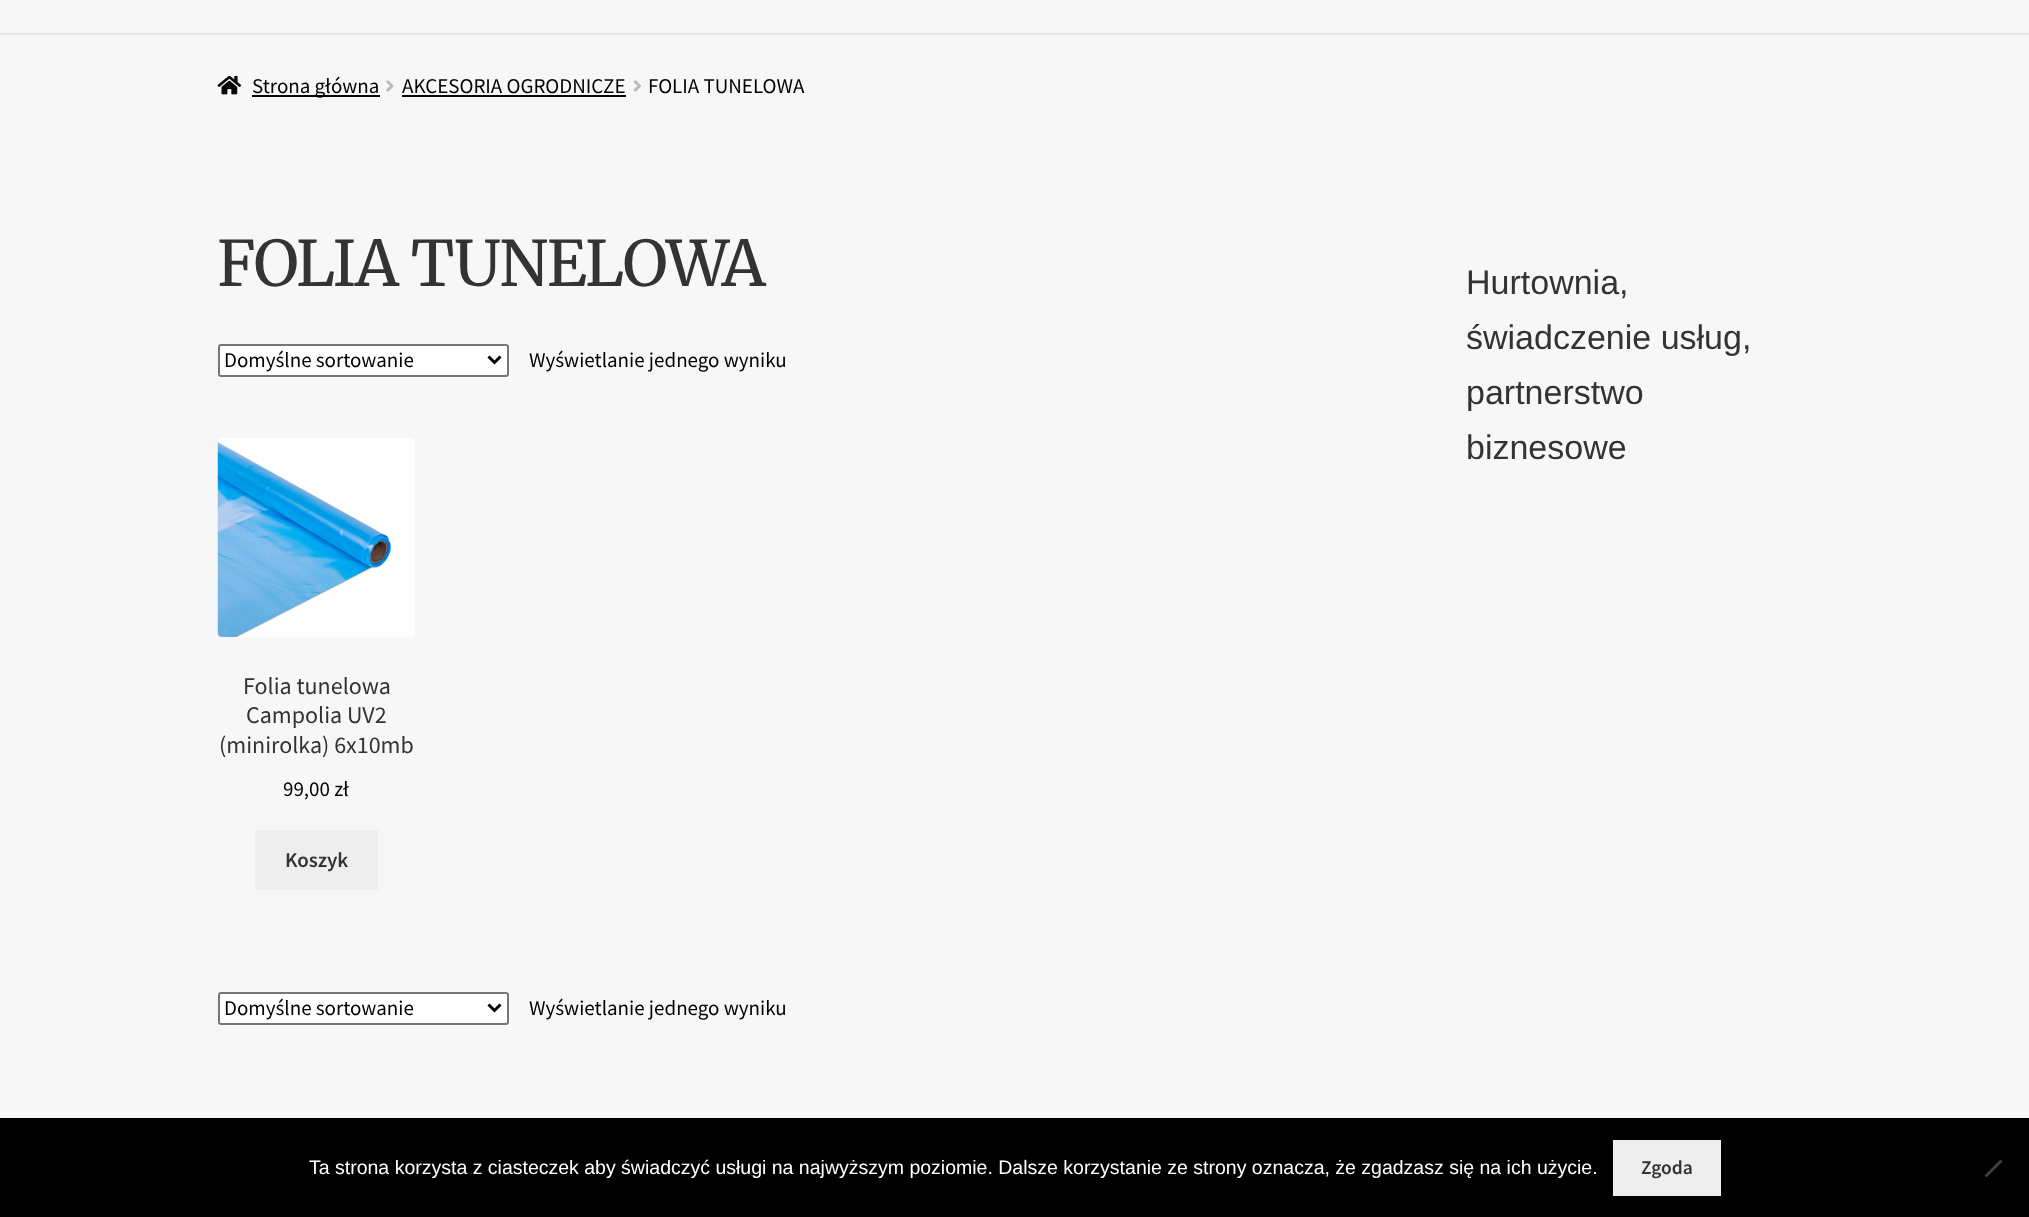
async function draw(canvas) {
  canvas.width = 2029;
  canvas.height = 1217;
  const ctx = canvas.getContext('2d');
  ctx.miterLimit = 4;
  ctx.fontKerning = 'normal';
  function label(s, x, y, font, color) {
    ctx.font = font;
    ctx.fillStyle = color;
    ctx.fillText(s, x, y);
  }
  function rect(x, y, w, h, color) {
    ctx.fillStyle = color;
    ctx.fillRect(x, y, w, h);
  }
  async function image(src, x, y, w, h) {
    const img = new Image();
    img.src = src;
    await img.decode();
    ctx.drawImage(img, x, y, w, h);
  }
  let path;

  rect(0, 0, 2029, 1217, '#f7f7f7');
  rect(0, 33, 2029, 2, '#e8e8e8');
  await image('assets/img1.png', 217, 75, 25, 20);
  rect(252, 95, 128, 2, '#050505');
  label('Strona główna', 252, 93, '21px Source Sans Pro', '#000');
  await image('assets/img2.png', 386, 80, 8, 12);
  label('AKCESORIA OGRODNICZE', 402, 93, '21px Source Sans Pro', '#000');
  rect(402, 95, 224, 2, '#050505');
  await image('assets/img3.png', 633, 80, 8, 12);
  label('FOLIA TUNELOWA', 648, 93, '21px Source Sans Pro', '#000');
  ctx.letterSpacing = '-1.5px';
  label('FOLIA TUNELOWA', 217, 286, '300 62.75px Merriweather', '#333');
  ctx.fillStyle = '#fff';
  ctx.beginPath();
  ctx.roundRect(219, 345, 289, 31, 2);
  ctx.fill();
  ctx.strokeStyle = '#767676';
  ctx.lineWidth = 2;
  ctx.stroke();
  path = new Path2D('M488.5 356.5L494.5 362.5L500.5 356.5');
  ctx.strokeStyle = '#000';
  ctx.lineWidth = 3;
  ctx.stroke(path);
  ctx.letterSpacing = '0px';
  label('Domyślne sortowanie', 224, 367, '21px Source Sans Pro', '#000');
  label('Wyświetlanie jednego wyniku', 529, 367, '21px Source Sans Pro', '#000');
  await image('assets/img4.png', 217, 438, 198, 199);
  label('Folia tunelowa', 243, 694, '24px Source Sans Pro', '#333');
  label('Campolia UV2', 246, 723, '24px Source Sans Pro', '#333');
  label('(minirolka) 6x10mb', 219, 753, '24px Source Sans Pro', '#333');
  label('99,00 zł', 283, 796, '21px Source Sans Pro', '#000');
  rect(255, 830, 123, 60, '#eee');
  label('Koszyk', 285, 867, '600 21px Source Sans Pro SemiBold', '#333');
  ctx.fillStyle = '#fff';
  ctx.beginPath();
  ctx.roundRect(219, 993, 289, 31, 2);
  ctx.fill();
  ctx.strokeStyle = '#767676';
  ctx.lineWidth = 2;
  ctx.stroke();
  path = new Path2D('M488.5 1004.5L494.5 1010.5L500.5 1004.5');
  ctx.strokeStyle = '#000';
  ctx.lineWidth = 3;
  ctx.stroke(path);
  label('Domyślne sortowanie', 224, 1015, '21px Source Sans Pro', '#000');
  label('Wyświetlanie jednego wyniku', 529, 1015, '21px Source Sans Pro', '#000');
  label('Hurtownia,', 1466, 294, '34px Liberation Sans', '#333');
  label('świadczenie usług,', 1466, 349, '34px Liberation Sans', '#333');
  label('partnerstwo', 1466, 404, '34px Liberation Sans', '#333');
  label('biznesowe', 1466, 459, '34px Liberation Sans', '#333');
  rect(0, 1118, 2029, 99, '#000');
  label('Ta strona korzysta z ciasteczek aby świadczyć usługi na najwyższym poziomie. Dalsze korzystanie ze strony oznacza, że zgadzasz się na ich użycie.', 309, 1174, '19.5px Liberation Sans', '#fff');
  rect(1613, 1140, 108, 56, '#eee');
  label('Zgoda', 1641, 1174, '600 19.5px Source Sans Pro SemiBold', '#333');
  ctx.fillStyle = '#404040';
  path = new Path2D('M2000.5 1159.5L2002.5 1161.5L1986.5 1177.5L1984.5 1175.5Z');
  ctx.fill(path);
}

draw(document.querySelector('canvas'));
